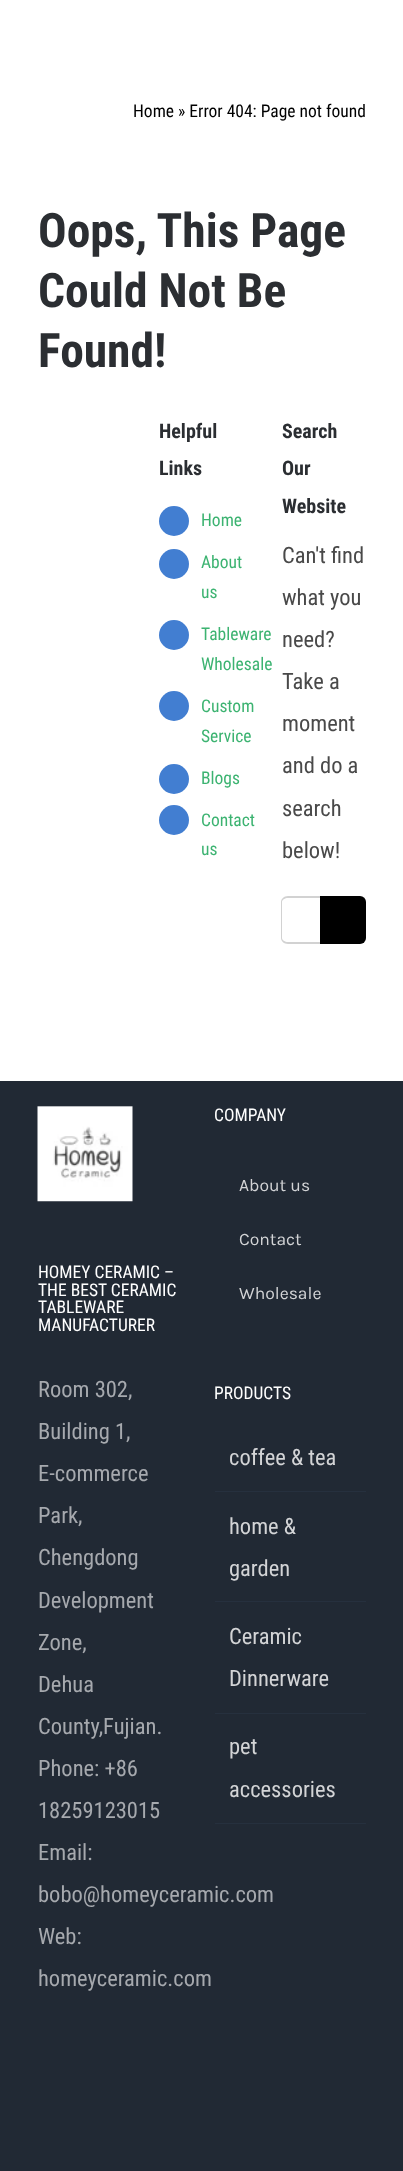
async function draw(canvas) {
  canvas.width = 403;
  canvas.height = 2171;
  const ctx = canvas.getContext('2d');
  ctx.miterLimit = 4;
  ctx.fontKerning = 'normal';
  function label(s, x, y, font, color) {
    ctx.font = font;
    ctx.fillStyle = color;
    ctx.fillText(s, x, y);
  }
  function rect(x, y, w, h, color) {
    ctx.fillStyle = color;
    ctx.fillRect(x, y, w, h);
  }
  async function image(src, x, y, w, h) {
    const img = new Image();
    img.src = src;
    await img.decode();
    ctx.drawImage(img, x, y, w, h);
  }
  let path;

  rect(0, 0, 403, 2171, '#fff');
  label('Home » Error 404: Page not found', 133, 117, '17.5px Roboto Condensed', '#000');
  label('Oops, This Page', 38, 247, 'bold 47.5px Roboto Condensed', '#2b2e32');
  label('Could Not Be', 38, 307, 'bold 47.5px Roboto Condensed', '#2b2e32');
  label('Found!', 38, 367, 'bold 47.5px Roboto Condensed', '#2b2e32');
  label('Helpful', 159, 438, 'bold 20px Roboto Condensed', '#2b2e32');
  label('Links', 159, 475, 'bold 20px Roboto Condensed', '#2b2e32');
  ctx.fillStyle = '#427ed1';
  ctx.beginPath();
  ctx.arc(174, 521, 15, 0, 2 * Math.PI);
  ctx.fill();
  label('Home', 201, 526, '17.5px Roboto Condensed', '#3cb371');
  ctx.fillStyle = '#427ed1';
  ctx.beginPath();
  ctx.arc(174, 564, 15, 0, 2 * Math.PI);
  ctx.fill();
  label('About', 201, 568, '17.5px Roboto Condensed', '#3cb371');
  label('us', 201, 598, '17.5px Roboto Condensed', '#3cb371');
  ctx.fillStyle = '#427ed1';
  ctx.beginPath();
  ctx.arc(174, 635, 15, 0, 2 * Math.PI);
  ctx.fill();
  label('Tableware', 201, 640, '17.5px Roboto Condensed', '#3cb371');
  label('Wholesale', 201, 670, '17.5px Roboto Condensed', '#3cb371');
  ctx.fillStyle = '#427ed1';
  ctx.beginPath();
  ctx.arc(174, 706, 15, 0, 2 * Math.PI);
  ctx.fill();
  label('Custom', 201, 712, '17.5px Roboto Condensed', '#3cb371');
  label('Service', 201, 742, '17.5px Roboto Condensed', '#3cb371');
  ctx.fillStyle = '#427ed1';
  ctx.beginPath();
  ctx.arc(174, 779, 15, 0, 2 * Math.PI);
  ctx.fill();
  label('Blogs', 201, 784, '17.5px Roboto Condensed', '#3cb371');
  ctx.fillStyle = '#427ed1';
  ctx.beginPath();
  ctx.arc(174, 820, 15, 0, 2 * Math.PI);
  ctx.fill();
  label('Contact', 201, 826, '17.5px Roboto Condensed', '#3cb371');
  label('us', 201, 855, '17.5px Roboto Condensed', '#3cb371');
  label('Search', 282, 438, 'bold 20px Roboto Condensed', '#2b2e32');
  label('Our', 282, 475, 'bold 20px Roboto Condensed', '#2b2e32');
  label('Website', 282, 513, 'bold 20px Roboto Condensed', '#2b2e32');
  label('Can\'t find', 282, 563, '22.5px Roboto Condensed', '#494949');
  label('what you', 282, 605, '22.5px Roboto Condensed', '#494949');
  label('need?', 282, 647, '22.5px Roboto Condensed', '#494949');
  label('Take a', 282, 689, '22.5px Roboto Condensed', '#494949');
  label('moment', 282, 731, '22.5px Roboto Condensed', '#494949');
  label('and do a', 282, 773, '22.5px Roboto Condensed', '#494949');
  label('search', 282, 816, '22.5px Roboto Condensed', '#494949');
  label('below!', 282, 858, '22.5px Roboto Condensed', '#494949');
  ctx.fillStyle = '#d2d2d2';
  path = new Path2D('M288 896H320V944H288C284 944 281 941 281 938V902C281 899 284 896 288 896ZM288 898H320V942H288C285 942 282 940 282 938V902C282 900 285 898 288 898Z');
  ctx.fill(path, 'evenodd');
  ctx.fillStyle = '#000';
  ctx.beginPath();
  ctx.roundRect(320, 896, 46, 48, [0, 6, 6, 0]);
  ctx.fill();
  rect(0, 1081, 403, 1090, '#212934');
  await image('assets/img1.png', 37, 1106, 96, 96);
  label('HOMEY CERAMIC –', 38, 1278, '17.5px Roboto Condensed', '#fff');
  label('THE BEST CERAMIC', 38, 1296, '17.5px Roboto Condensed', '#fff');
  label('TABLEWARE', 38, 1313, '17.5px Roboto Condensed', '#fff');
  label('MANUFACTURER', 38, 1331, '17.5px Roboto Condensed', '#fff');
  label('Room 302,', 38, 1397, '22.5px Roboto Condensed', '#a6a9ae');
  label('Building 1,', 38, 1439, '22.5px Roboto Condensed', '#a6a9ae');
  label('E-commerce', 38, 1481, '22.5px Roboto Condensed', '#a6a9ae');
  label('Park,', 38, 1523, '22.5px Roboto Condensed', '#a6a9ae');
  label('Chengdong', 38, 1565, '22.5px Roboto Condensed', '#a6a9ae');
  label('Development', 38, 1608, '22.5px Roboto Condensed', '#a6a9ae');
  label('Zone,', 38, 1650, '22.5px Roboto Condensed', '#a6a9ae');
  label('Dehua', 38, 1692, '22.5px Roboto Condensed', '#a6a9ae');
  label('County,Fujian.', 38, 1734, '22.5px Roboto Condensed', '#a6a9ae');
  label('Phone: +86', 38, 1776, '22.5px Roboto Condensed', '#a6a9ae');
  label('18259123015', 38, 1818, '22.5px Roboto Condensed', '#a6a9ae');
  label('Email:', 38, 1860, '22.5px Roboto Condensed', '#a6a9ae');
  label('bobo@homeyceramic.com', 38, 1902, '22.5px Roboto Condensed', '#a6a9ae');
  label('Web:', 38, 1944, '22.5px Roboto Condensed', '#a6a9ae');
  label('homeyceramic.com', 38, 1986, '22.5px Roboto Condensed', '#a6a9ae');
  label('COMPANY', 214, 1121, '17.5px Roboto Condensed', '#fff');
  label('About us', 239, 1191, '17.5px Karla', '#d3d4d6');
  label('Contact', 239, 1245, '17.5px Karla', '#d3d4d6');
  label('Wholesale', 239, 1299, '17.5px Karla', '#d3d4d6');
  label('PRODUCTS', 214, 1399, '17.5px Roboto Condensed', '#fff');
  rect(215, 1491, 151, 1, '#26303e');
  label('coffee & tea', 229, 1465, '22.5px Roboto Condensed', '#d3d4d6');
  rect(215, 1601, 151, 1, '#26303e');
  label('home &', 229, 1534, '22.5px Roboto Condensed', '#d3d4d6');
  label('garden', 229, 1576, '22.5px Roboto Condensed', '#d3d4d6');
  rect(215, 1713, 151, 1, '#26303e');
  label('Ceramic', 229, 1644, '22.5px Roboto Condensed', '#d3d4d6');
  label('Dinnerware', 229, 1686, '22.5px Roboto Condensed', '#d3d4d6');
  rect(215, 1823, 151, 1, '#26303e');
  label('pet', 229, 1754, '22.5px Roboto Condensed', '#d3d4d6');
  label('accessories', 229, 1797, '22.5px Roboto Condensed', '#d3d4d6');
}

draw(document.querySelector('canvas'));
